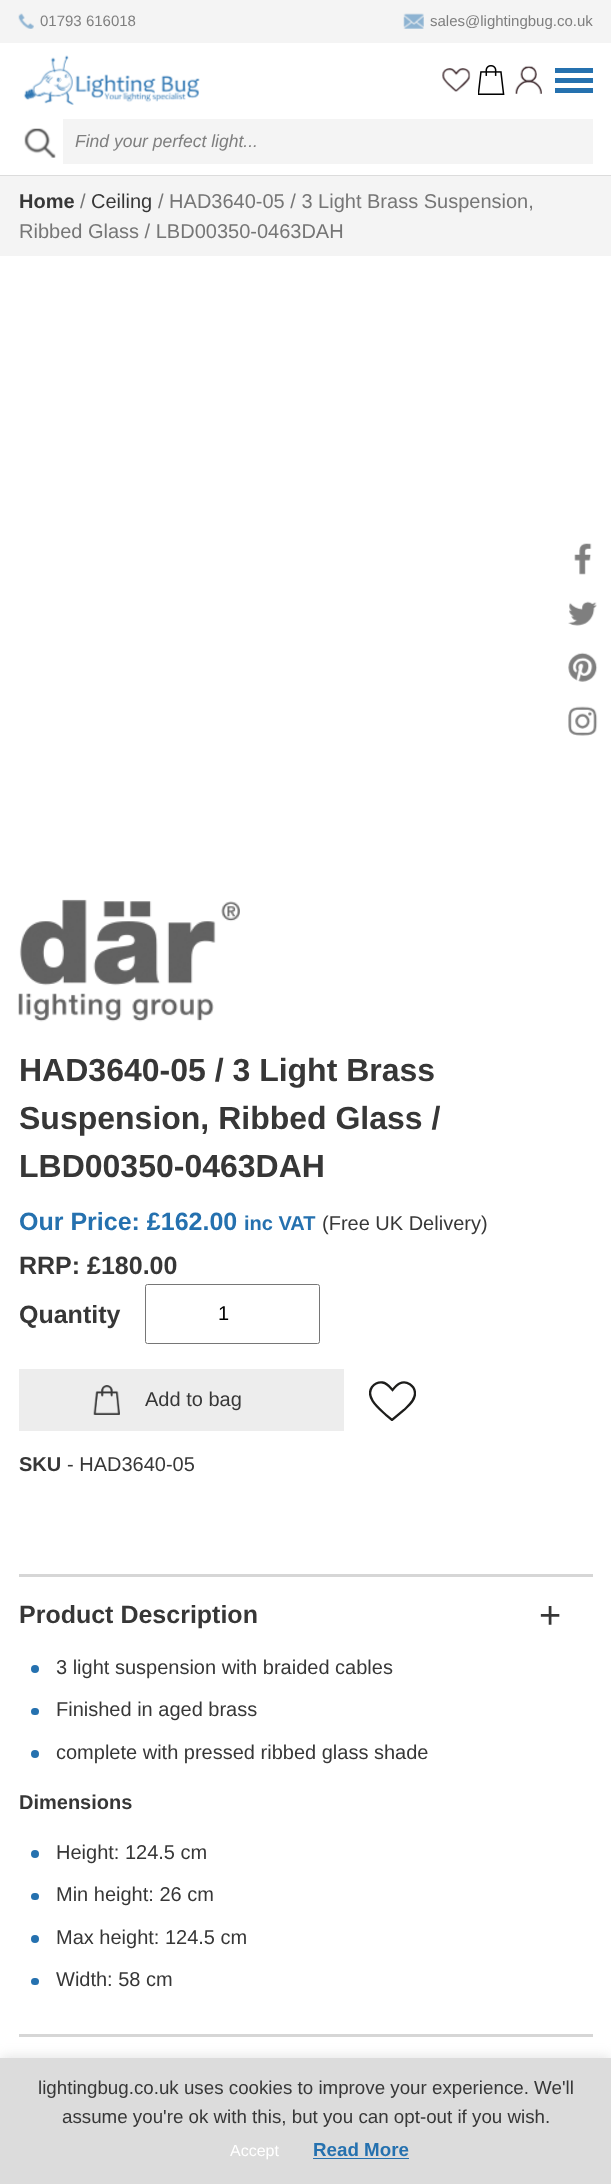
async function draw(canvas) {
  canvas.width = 611;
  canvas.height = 2184;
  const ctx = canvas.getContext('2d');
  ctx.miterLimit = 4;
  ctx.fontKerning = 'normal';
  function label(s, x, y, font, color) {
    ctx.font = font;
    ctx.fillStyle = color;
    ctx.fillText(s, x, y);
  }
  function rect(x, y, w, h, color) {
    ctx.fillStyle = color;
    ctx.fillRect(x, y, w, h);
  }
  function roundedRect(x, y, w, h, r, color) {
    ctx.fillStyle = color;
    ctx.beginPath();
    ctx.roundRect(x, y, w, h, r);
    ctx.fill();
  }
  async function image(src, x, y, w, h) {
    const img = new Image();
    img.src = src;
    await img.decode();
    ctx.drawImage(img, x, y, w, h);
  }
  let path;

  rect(0, 0, 611, 2184, '#fff');
  rect(0, 0, 611, 43, '#f4f4f4');
  await image('assets/img1.png', 18, 13, 16, 16);
  label('01793 616018', 40, 26, '15px Liberation Sans', '#7f7f7f');
  await image('assets/img2.png', 403, 13, 21, 16);
  label('sales@lightingbug.co.uk', 430, 26, '15px Liberation Sans', '#7f7f7f');
  await image('assets/img3.png', 23, 55, 177, 50);
  await image('assets/img4.png', 442, 68, 29, 24);
  await image('assets/img5.png', 478, 65, 27, 30);
  await image('assets/img6.png', 515, 65, 27, 29);
  rect(555, 68, 38, 5, '#2571af');
  rect(555, 78, 38, 5, '#2571af');
  rect(555, 88, 38, 5, '#2571af');
  await image('assets/img7.png', 24, 128, 32, 30);
  rect(63, 119, 530, 45, '#f4f4f4');
  label('Find your perfect light...', 75, 147, 'italic 17.5px Liberation Sans', '#7f7f7f');
  rect(0, 176, 611, 80, '#f4f4f4');
  rect(0, 175, 611, 1, '#dcdcdc');
  label('Home', 19, 208, 'bold 20px Liberation Sans', '#373737');
  label('/', 80, 208, '20px Liberation Sans', '#767676');
  label('Ceiling', 91, 208, '20px Liberation Sans', '#373737');
  label('/ HAD3640-05 / 3 Light Brass Suspension,', 158, 208, '20px Liberation Sans', '#767676');
  label('Ribbed Glass / LBD00350-0463DAH', 19, 238, '20px Liberation Sans', '#767676');
  await image('assets/img8.png', 574, 543, 18, 32);
  await image('assets/img9.png', 568, 601, 29, 25);
  await image('assets/img10.png', 568, 652, 30, 30);
  await image('assets/img11.png', 568, 706, 30, 30);
  await image('assets/img12.png', 18, 899, 222, 123);
  label('HAD3640-05 / 3 Light Brass', 19, 1081, 'bold 32px Liberation Sans', '#373737');
  label('Suspension, Ribbed Glass /', 19, 1129, 'bold 32px Liberation Sans', '#373737');
  label('LBD00350-0463DAH', 19, 1177, 'bold 32px Liberation Sans', '#373737');
  label('Our Price: £162.00', 19, 1230, 'bold 25px Liberation Sans', '#2571af');
  label('inc VAT', 244, 1230, 'bold 20px Liberation Sans', '#2571af');
  label('(Free UK Delivery)', 322, 1230, '20px Liberation Sans', '#373737');
  label('RRP: £180.00', 19, 1274, 'bold 25px Liberation Sans', '#373737');
  label('Quantity', 19, 1323, 'bold 25px Liberation Sans', '#373737');
  ctx.beginPath();
  ctx.roundRect(145.5, 1284.5, 174, 59, 2);
  ctx.strokeStyle = '#767676';
  ctx.stroke();
  label('1', 218, 1320, '20px Liberation Sans', '#000');
  rect(19, 1369, 325, 62, '#ededed');
  await image('assets/img13.png', 93, 1385, 27, 30);
  label('Add to bag', 145, 1406, '20px Liberation Sans', '#373737');
  label('SKU', 19, 1471, 'bold 20px Liberation Sans', '#373737');
  label('- HAD3640-05', 67, 1471, '20px Liberation Sans', '#373737');
  ctx.save();
  ctx.beginPath();
  ctx.rect(369, 1381, 47, 40);
  ctx.clip();
  path = new Path2D('M415 1393.5C415 1400.5 408.5 1405.5 404 1410L392 1420L386.5 1415.5C380.5 1409.5 364.5 1398 372 1387C374.5 1384 378.5 1382 382.5 1382.5C387 1383 389.5 1386.5 392.5 1390C394.5 1387.5 396.5 1385 399.5 1383.5C406.5 1380 415 1385.5 415 1393.5Z');
  ctx.strokeStyle = '#1d1d1b';
  ctx.lineWidth = 2.3;
  ctx.lineCap = 'round';
  ctx.stroke(path);
  ctx.restore();
  rect(19, 1574, 574, 3, '#d6d6d6');
  label('Product Description', 19, 1623, 'bold 25px Liberation Sans', '#373737');
  label('+', 539, 1628, '38px Liberation Sans', '#373737');
  ctx.fillStyle = '#2571af';
  ctx.beginPath();
  ctx.arc(35, 1669, 4, 0, 2 * Math.PI);
  ctx.fill();
  label('3 light suspension with braided cables', 56, 1674, '20px Liberation Sans', '#373737');
  roundedRect(31, 1708, 8, 7, 3.5, '#2571af');
  label('Finished in aged brass', 56, 1716, '20px Liberation Sans', '#373737');
  ctx.fillStyle = '#2571af';
  ctx.beginPath();
  ctx.arc(35, 1754, 4, 0, 2 * Math.PI);
  ctx.fill();
  label('complete with pressed ribbed glass shade', 56, 1759, '20px Liberation Sans', '#373737');
  label('Dimensions', 19, 1809, 'bold 20px Liberation Sans', '#373737');
  ctx.fillStyle = '#2571af';
  ctx.beginPath();
  ctx.arc(35, 1854, 4, 0, 2 * Math.PI);
  ctx.fill();
  label('Height: 124.5 cm', 56, 1859, '20px Liberation Sans', '#373737');
  roundedRect(31, 1893, 8, 7, 3.5, '#2571af');
  label('Min height: 26 cm', 56, 1901, '20px Liberation Sans', '#373737');
  ctx.fillStyle = '#2571af';
  ctx.beginPath();
  ctx.arc(35, 1939, 4, 0, 2 * Math.PI);
  ctx.fill();
  label('Max height: 124.5 cm', 56, 1944, '20px Liberation Sans', '#373737');
  roundedRect(31, 1978, 8, 7, 3.5, '#2571af');
  label('Width: 58 cm', 56, 1986, '20px Liberation Sans', '#373737');
  rect(19, 2034, 574, 3, '#d6d6d6');
  ctx.fillStyle = '#acabab4d';
  ctx.filter = 'blur(6px)';
  ctx.beginPath();
  ctx.rect(0, 2056, 611, 128);
  ctx.fill();
  ctx.filter = 'none';
  rect(0, 2058, 611, 126, '#dcdcdc');
  label('lightingbug.co.uk uses cookies to improve your experience. We\'ll', 38, 2094, '18.75px Liberation Sans', '#373737');
  label('assume you\'re ok with this, but you can opt-out if you wish.', 62, 2123, '18.75px Liberation Sans', '#373737');
  label('Accept', 230, 2156, '16px Liberation Sans', '#fff');
  label('Read More', 313, 2156, 'bold 18.75px Liberation Sans', '#2571af');
  rect(313, 2158, 96, 1, '#2571af');
}

draw(document.querySelector('canvas'));
